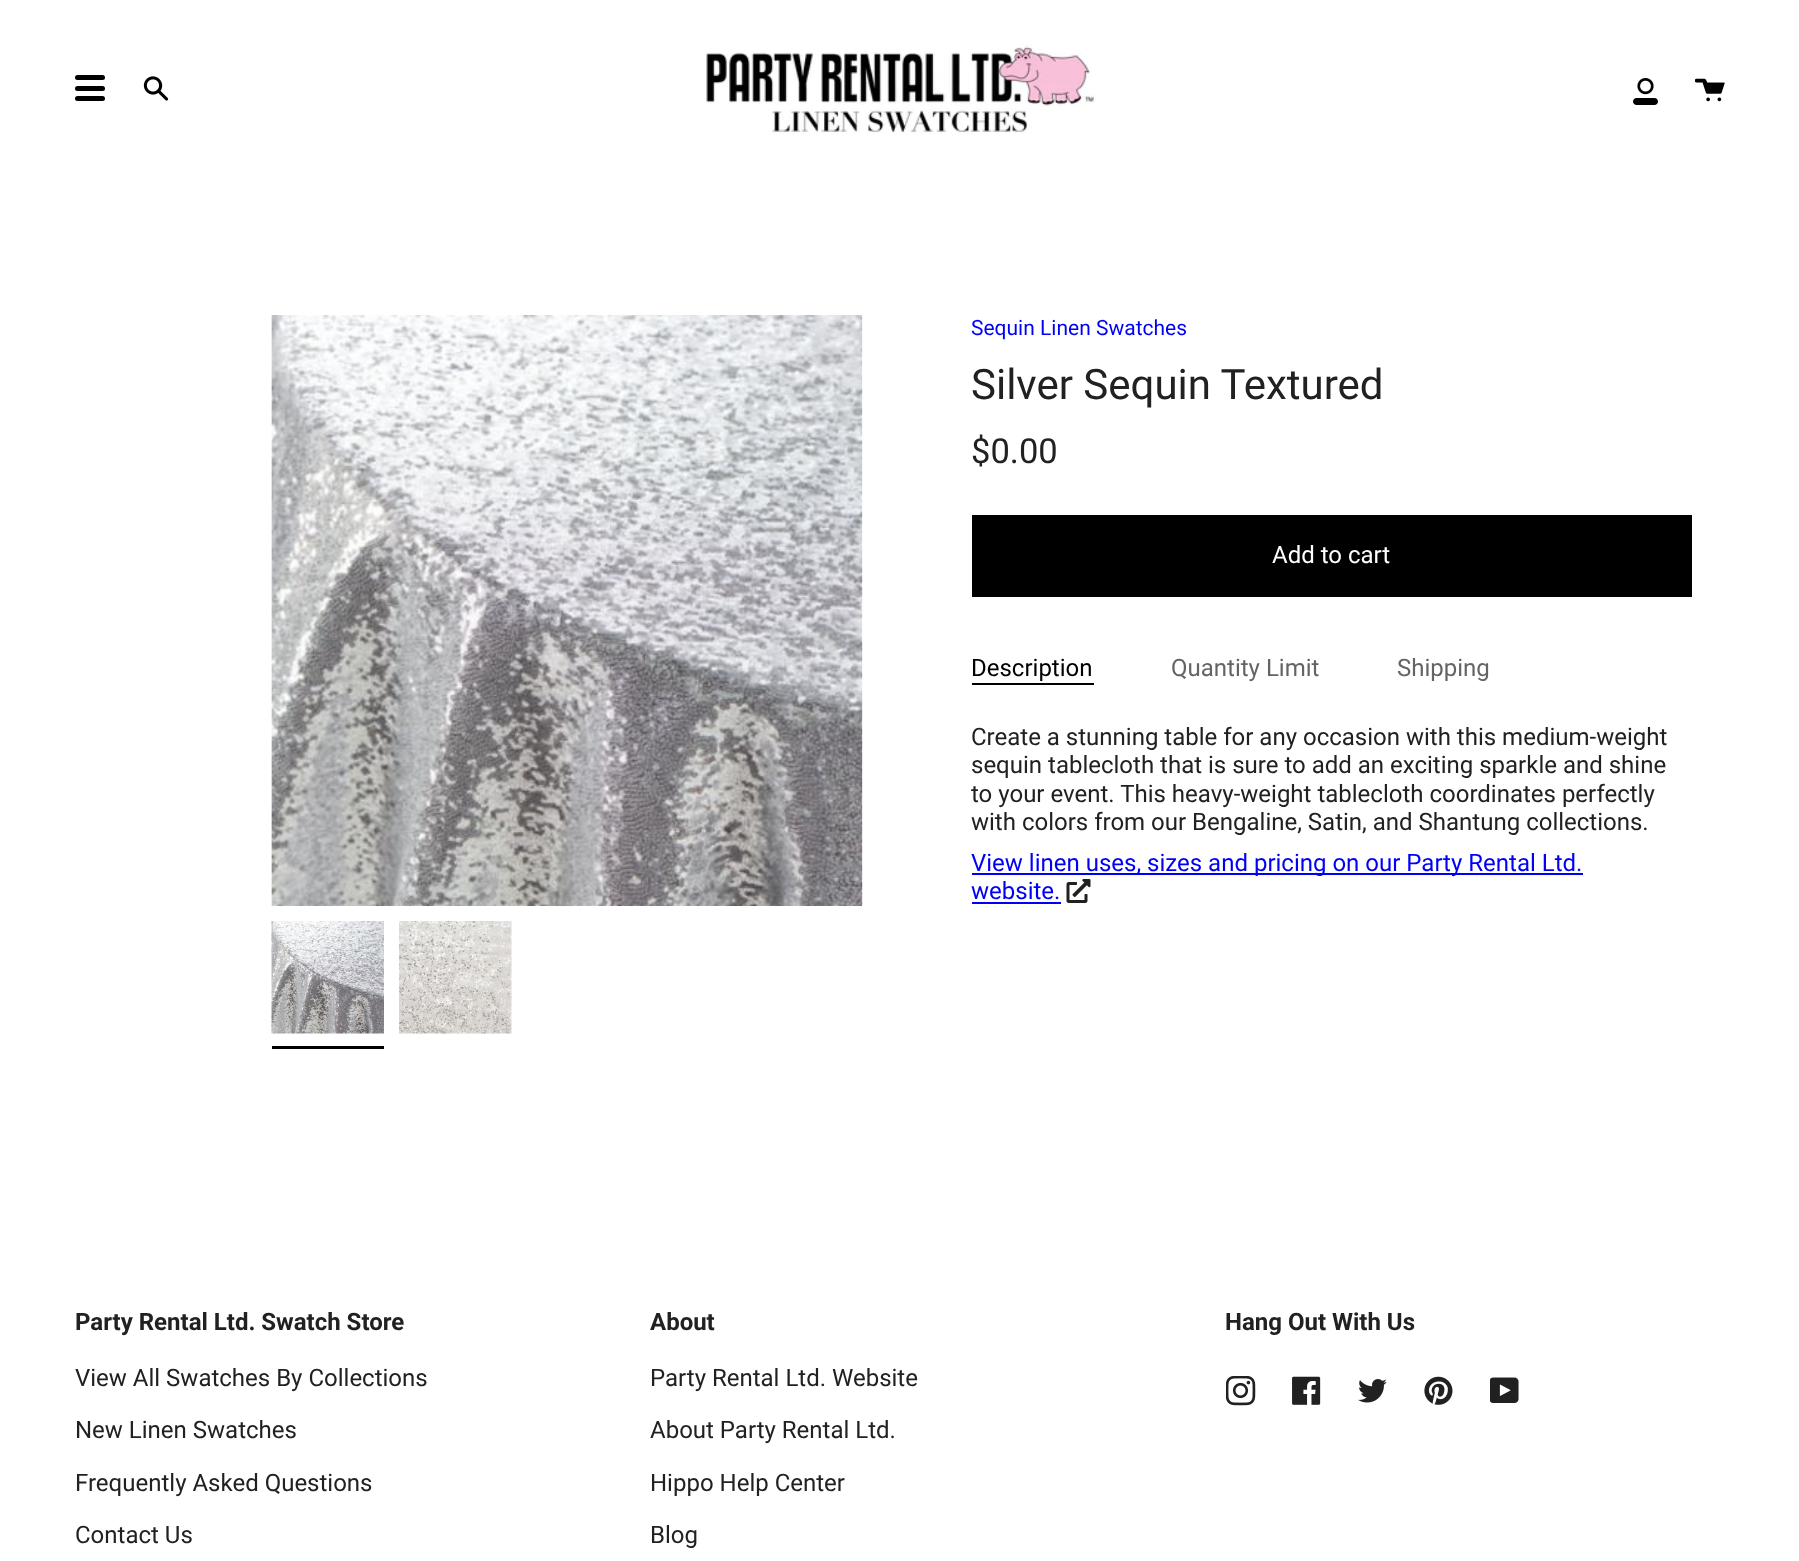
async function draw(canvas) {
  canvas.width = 1799;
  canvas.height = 1561;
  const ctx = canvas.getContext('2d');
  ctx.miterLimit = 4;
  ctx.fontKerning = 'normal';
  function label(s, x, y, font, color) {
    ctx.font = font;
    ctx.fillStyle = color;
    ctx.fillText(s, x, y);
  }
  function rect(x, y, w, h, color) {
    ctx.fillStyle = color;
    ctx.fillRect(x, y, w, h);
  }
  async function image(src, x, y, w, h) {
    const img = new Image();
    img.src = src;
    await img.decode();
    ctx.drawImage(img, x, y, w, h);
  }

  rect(0, 0, 1799, 1561, '#fff');
  ctx.fillStyle = '#000';
  ctx.beginPath();
  ctx.roundRect(75, 75, 26, 5, [2.5, 0, 0, 2.5]);
  ctx.fill();
  ctx.beginPath();
  ctx.roundRect(80, 75, 25, 5, [0, 2.5, 2.5, 0]);
  ctx.fill();
  ctx.beginPath();
  ctx.roundRect(75, 86, 26, 5, [2.5, 0, 0, 2.5]);
  ctx.fill();
  ctx.beginPath();
  ctx.roundRect(80, 86, 25, 5, [0, 2.5, 2.5, 0]);
  ctx.fill();
  ctx.beginPath();
  ctx.roundRect(75, 96, 26, 5, [2.5, 0, 0, 2.5]);
  ctx.fill();
  ctx.beginPath();
  ctx.roundRect(80, 96, 25, 5, [0, 2.5, 2.5, 0]);
  ctx.fill();
  await image('assets/img1.png', 143, 76, 26, 25);
  await image('assets/img2.png', 706, 44, 390, 90);
  await image('assets/img3.png', 1633, 78, 25, 27);
  await image('assets/img4.png', 1695, 78, 30, 24);
  await image('assets/img5.png', 271, 315, 592, 591);
  await image('assets/img6.png', 271, 921, 113, 113);
  rect(272, 1046, 112, 3, '#000');
  await image('assets/img7.png', 399, 921, 113, 113);
  label('Sequin Linen Swatches', 971, 335, '21px Roboto', '#0000f7');
  label('Silver Sequin Textured', 971, 399, '42px Roboto', '#212121');
  label('$0.00', 971, 463, '34.5px Roboto', '#212121');
  rect(972, 515, 720, 82, '#000');
  label('Add to cart', 1272, 563, '24px Roboto', '#fff');
  rect(972, 683, 122, 2, '#000');
  label('Description', 971, 676, '24px Roboto', '#000');
  label('Quantity Limit', 1171, 676, '24px Roboto', '#646464');
  label('Shipping', 1397, 676, '24px Roboto', '#646464');
  label('Create a stunning table for any occasion with this medium-weight', 971, 745, '24px Roboto', '#212121');
  label('sequin tablecloth that is sure to add an exciting sparkle and shine', 971, 773, '24px Roboto', '#212121');
  label('to your event. This heavy-weight tablecloth coordinates perfectly', 971, 802, '24px Roboto', '#212121');
  label('with colors from our Bengaline, Satin, and Shantung collections.', 971, 830, '24px Roboto', '#212121');
  rect(972, 873, 611, 2, '#0000f7');
  label('View linen uses, sizes and pricing on our Party Rental Ltd.', 971, 871, '24px Roboto', '#0000f7');
  label('website.', 971, 899, '24px Roboto', '#0000f7');
  rect(972, 902, 89, 2, '#0000f7');
  await image('assets/img8.png', 1066, 879, 25, 24);
  label('Party Rental Ltd. Swatch Store', 75, 1330, 'bold 24px Roboto', '#212121');
  label('View All Swatches By Collections', 75, 1386, '24px Roboto', '#212121');
  label('New Linen Swatches', 75, 1438, '24px Roboto', '#212121');
  label('Frequently Asked Questions', 75, 1491, '24px Roboto', '#212121');
  label('Contact Us', 75, 1543, '24px Roboto', '#212121');
  label('About', 650, 1330, 'bold 24px Roboto', '#212121');
  label('Party Rental Ltd. Website', 650, 1386, '24px Roboto', '#212121');
  label('About Party Rental Ltd.', 650, 1438, '24px Roboto', '#212121');
  label('Hippo Help Center', 650, 1491, '24px Roboto', '#212121');
  label('Blog', 650, 1543, '24px Roboto', '#212121');
  label('Hang Out With Us', 1225, 1330, 'bold 24px Roboto', '#212121');
  await image('assets/img9.png', 1226, 1376, 30, 30);
  await image('assets/img10.png', 1292, 1376, 29, 29);
  await image('assets/img11.png', 1358, 1379, 29, 24);
  await image('assets/img12.png', 1424, 1376, 29, 29);
  await image('assets/img13.png', 1490, 1377, 29, 26);
}

draw(document.querySelector('canvas'));
